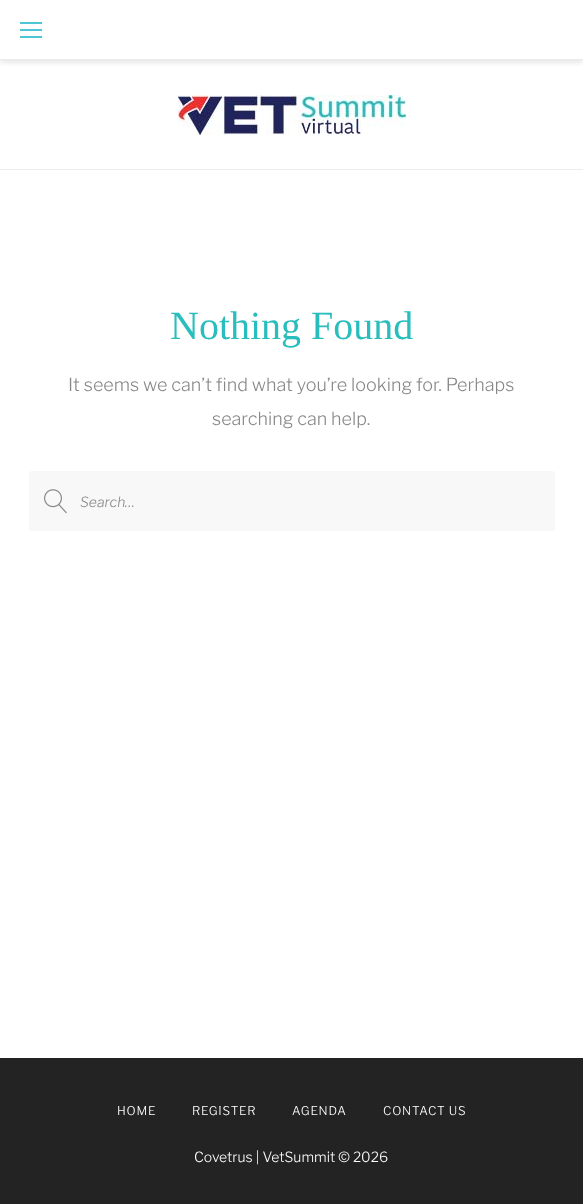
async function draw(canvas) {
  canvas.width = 583;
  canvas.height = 1204;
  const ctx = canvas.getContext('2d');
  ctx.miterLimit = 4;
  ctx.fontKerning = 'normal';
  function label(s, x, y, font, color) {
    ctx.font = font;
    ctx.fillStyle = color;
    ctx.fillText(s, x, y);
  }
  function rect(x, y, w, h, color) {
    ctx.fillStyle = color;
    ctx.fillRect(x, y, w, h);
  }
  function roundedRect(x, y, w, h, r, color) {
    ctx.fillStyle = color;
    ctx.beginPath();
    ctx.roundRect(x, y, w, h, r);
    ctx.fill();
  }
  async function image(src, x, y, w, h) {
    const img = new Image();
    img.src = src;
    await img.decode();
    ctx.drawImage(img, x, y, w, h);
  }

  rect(0, 0, 583, 1204, '#fff');
  ctx.save();
  ctx.beginPath();
  ctx.rect(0, 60, 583, 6);
  ctx.clip();
  ctx.fillStyle = '#88888842';
  ctx.filter = 'blur(3px)';
  ctx.beginPath();
  ctx.rect(0, 2, 583, 60);
  ctx.fill();
  ctx.filter = 'none';
  ctx.restore();
  rect(0, 59, 583, 1, '#ececee');
  rect(20, 29, 22, 2, '#4fc6d5');
  rect(20, 22, 22, 2, '#4fc6d5');
  rect(20, 36, 22, 2, '#4fc6d5');
  await image('assets/img1.png', 178, 95, 228, 40);
  rect(0, 169, 583, 1, '#ececee');
  label('Nothing Found', 170, 339, '40px Liberation Serif', '#29bdbd');
  label('It seems we can’t find what you’re looking for. Perhaps', 68, 391, '300 18px Libre Franklin', '#888');
  label('searching can help.', 212, 425, '300 18px Libre Franklin', '#888');
  roundedRect(29, 471, 526, 60, 3, '#f8f8f8');
  await image('assets/img2.png', 44, 489, 23, 25);
  label('Search…', 80, 507, 'italic 100 14px Libre Franklin', '#888');
  rect(0, 1058, 583, 146, '#232323');
  ctx.letterSpacing = '0.75px';
  label('HOME', 117, 1115, '300 12px Libre Franklin', '#fff');
  label('REGISTER', 192, 1115, '300 12px Libre Franklin', '#fff');
  label('AGENDA', 292, 1115, '300 12px Libre Franklin', '#fff');
  label('CONTACT US', 383, 1115, '300 12px Libre Franklin', '#fff');
  ctx.letterSpacing = '0px';
  label('Covetrus | VetSummit © 2026', 194, 1162, '300 14px Libre Franklin', '#fff');
}

draw(document.querySelector('canvas'));
